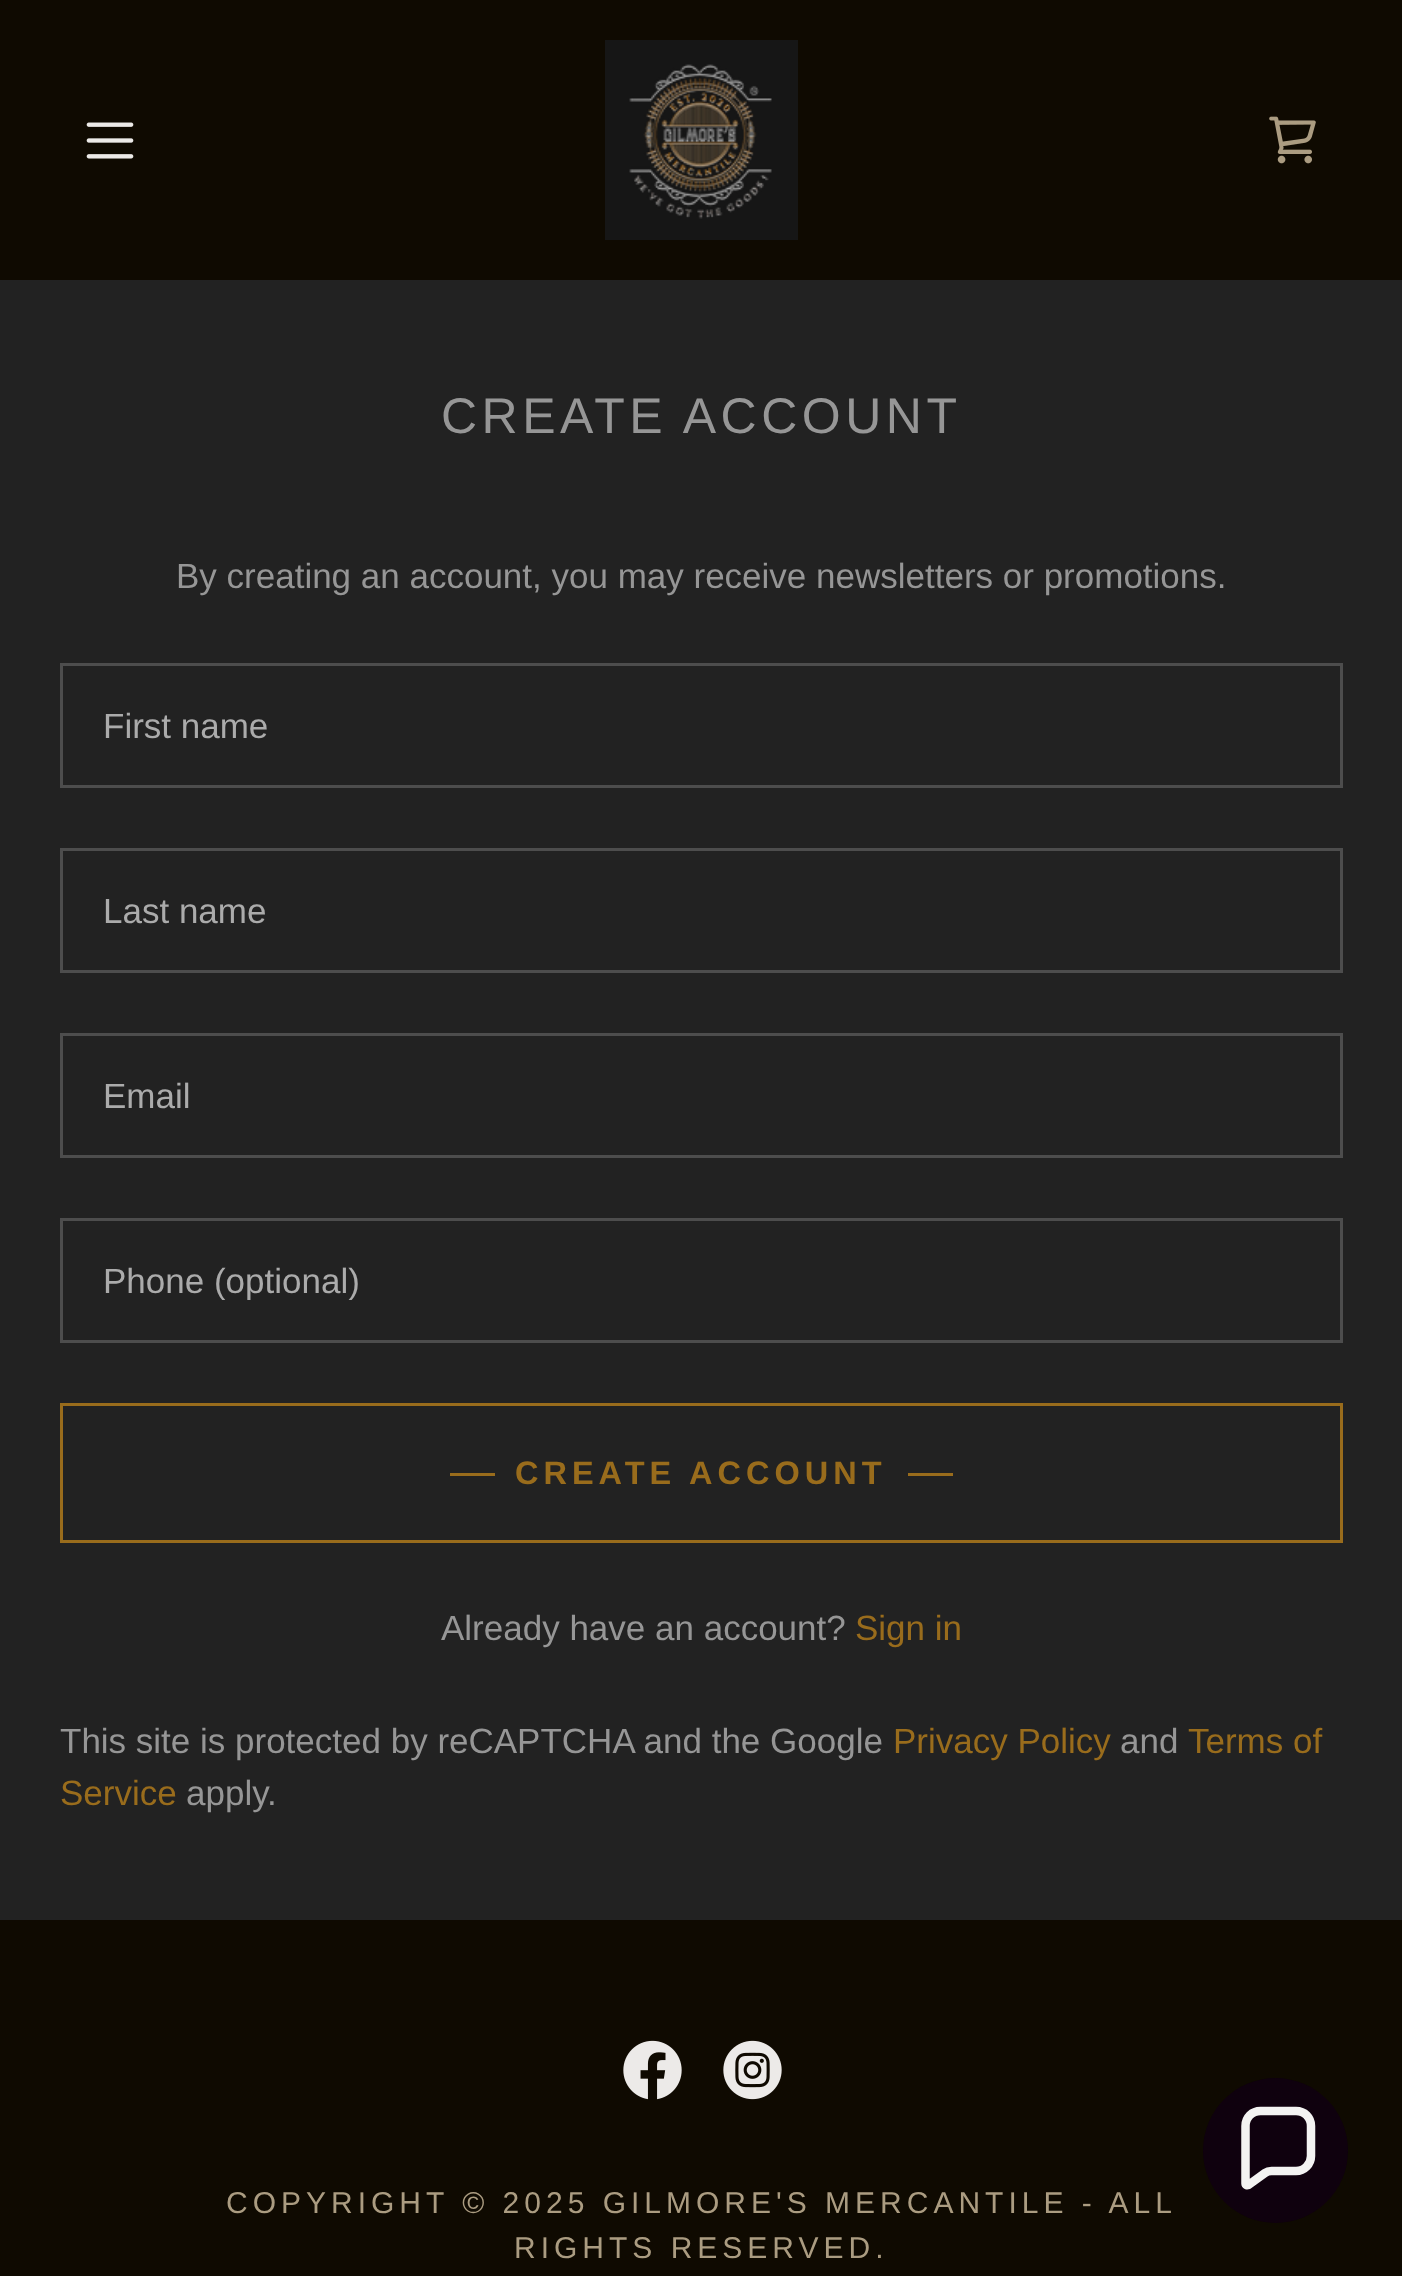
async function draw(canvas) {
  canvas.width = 1402;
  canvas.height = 2276;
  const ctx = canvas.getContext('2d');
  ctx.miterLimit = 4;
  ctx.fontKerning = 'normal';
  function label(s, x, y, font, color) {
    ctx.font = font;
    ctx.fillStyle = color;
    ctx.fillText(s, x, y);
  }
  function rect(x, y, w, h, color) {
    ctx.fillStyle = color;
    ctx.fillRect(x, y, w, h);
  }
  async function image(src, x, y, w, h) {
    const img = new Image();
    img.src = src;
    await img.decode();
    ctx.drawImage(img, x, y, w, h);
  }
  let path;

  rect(0, 0, 1402, 2276, '#0f0a01');
  await image('assets/img1.png', 86, 122, 48, 37);
  rect(605, 40, 193, 200, '#161616');
  await image('assets/img2.png', 629, 64, 143, 155);
  await image('assets/img3.png', 1269, 116, 47, 48);
  rect(0, 280, 1402, 1640, '#222');
  ctx.letterSpacing = '4.5px';
  label('CREATE ACCOUNT', 441, 433, '50px Liberation Sans', '#969696');
  ctx.letterSpacing = '0px';
  label('By creating an account, you may receive newsletters or promotions.', 176, 588, '35px Liberation Sans', '#969696');
  ctx.strokeStyle = '#4d4d4d';
  ctx.lineWidth = 3;
  ctx.strokeRect(61.5, 664.5, 1280, 122);
  label('First name', 103, 738, '35px Liberation Sans', '#ababab');
  ctx.strokeRect(61.5, 849.5, 1280, 122);
  label('Last name', 103, 923, '35px Liberation Sans', '#ababab');
  ctx.strokeRect(61.5, 1034.5, 1280, 122);
  label('Email', 103, 1108, '35px Liberation Sans', '#ababab');
  ctx.strokeRect(61.5, 1219.5, 1280, 122);
  ctx.save();
  ctx.beginPath();
  ctx.rect(103, 1260, 1197, 40);
  ctx.clip();
  label('Phone (optional)', 103, 1293, '35px Liberation Sans', '#ababab');
  ctx.restore();
  ctx.strokeStyle = '#996c1c';
  ctx.strokeRect(61.5, 1404.5, 1280, 137);
  rect(450, 1473, 45, 3, '#996c1c');
  ctx.letterSpacing = '5px';
  label('CREATE ACCOUNT', 515, 1484, 'bold 32.5px Liberation Sans', '#996c1c');
  rect(908, 1473, 45, 3, '#996c1c');
  ctx.letterSpacing = '0px';
  label('Already have an account?', 441, 1640, '35px Liberation Sans', '#969696');
  label('Sign in', 855, 1640, '35px Liberation Sans', '#996c1c');
  label('This site is protected by reCAPTCHA and the Google', 60, 1753, '35px Liberation Sans', '#969696');
  label('Privacy Policy', 893, 1753, '35px Liberation Sans', '#996c1c');
  label('and', 1120, 1753, '35px Liberation Sans', '#969696');
  label('Terms of', 1188, 1753, '35px Liberation Sans', '#996c1c');
  label('Service', 60, 1805, '35px Liberation Sans', '#996c1c');
  label('apply.', 186, 1805, '35px Liberation Sans', '#969696');
  await image('assets/img4.png', 623, 2040, 59, 60);
  await image('assets/img5.png', 723, 2040, 59, 60);
  ctx.letterSpacing = '5px';
  label('COPYRIGHT © 2025 GILMORE\'S MERCANTILE - ALL', 226, 2213, '30px Liberation Sans', '#ab9c81');
  label('RIGHTS RESERVED.', 514, 2258, '30px Liberation Sans', '#ab9c81');
  ctx.fillStyle = '#0f010e';
  ctx.beginPath();
  ctx.arc(1275.5, 2150.5, 72.5, 0, 2 * Math.PI);
  ctx.fill();
  path = new Path2D('M1296 2111H1260.5C1252 2111 1245.5 2117.5 1245.5 2126V2183.5C1245.5 2185 1247 2185.5 1248.5 2185L1265 2173C1267 2171.5 1269 2171 1271.5 2171H1296C1304.5 2171 1311 2164 1311 2156V2126C1311 2117.5 1304.5 2111 1296 2111Z');
  ctx.strokeStyle = '#f3f3f2';
  ctx.lineWidth = 8.5;
  ctx.stroke(path);
}

draw(document.querySelector('canvas'));
